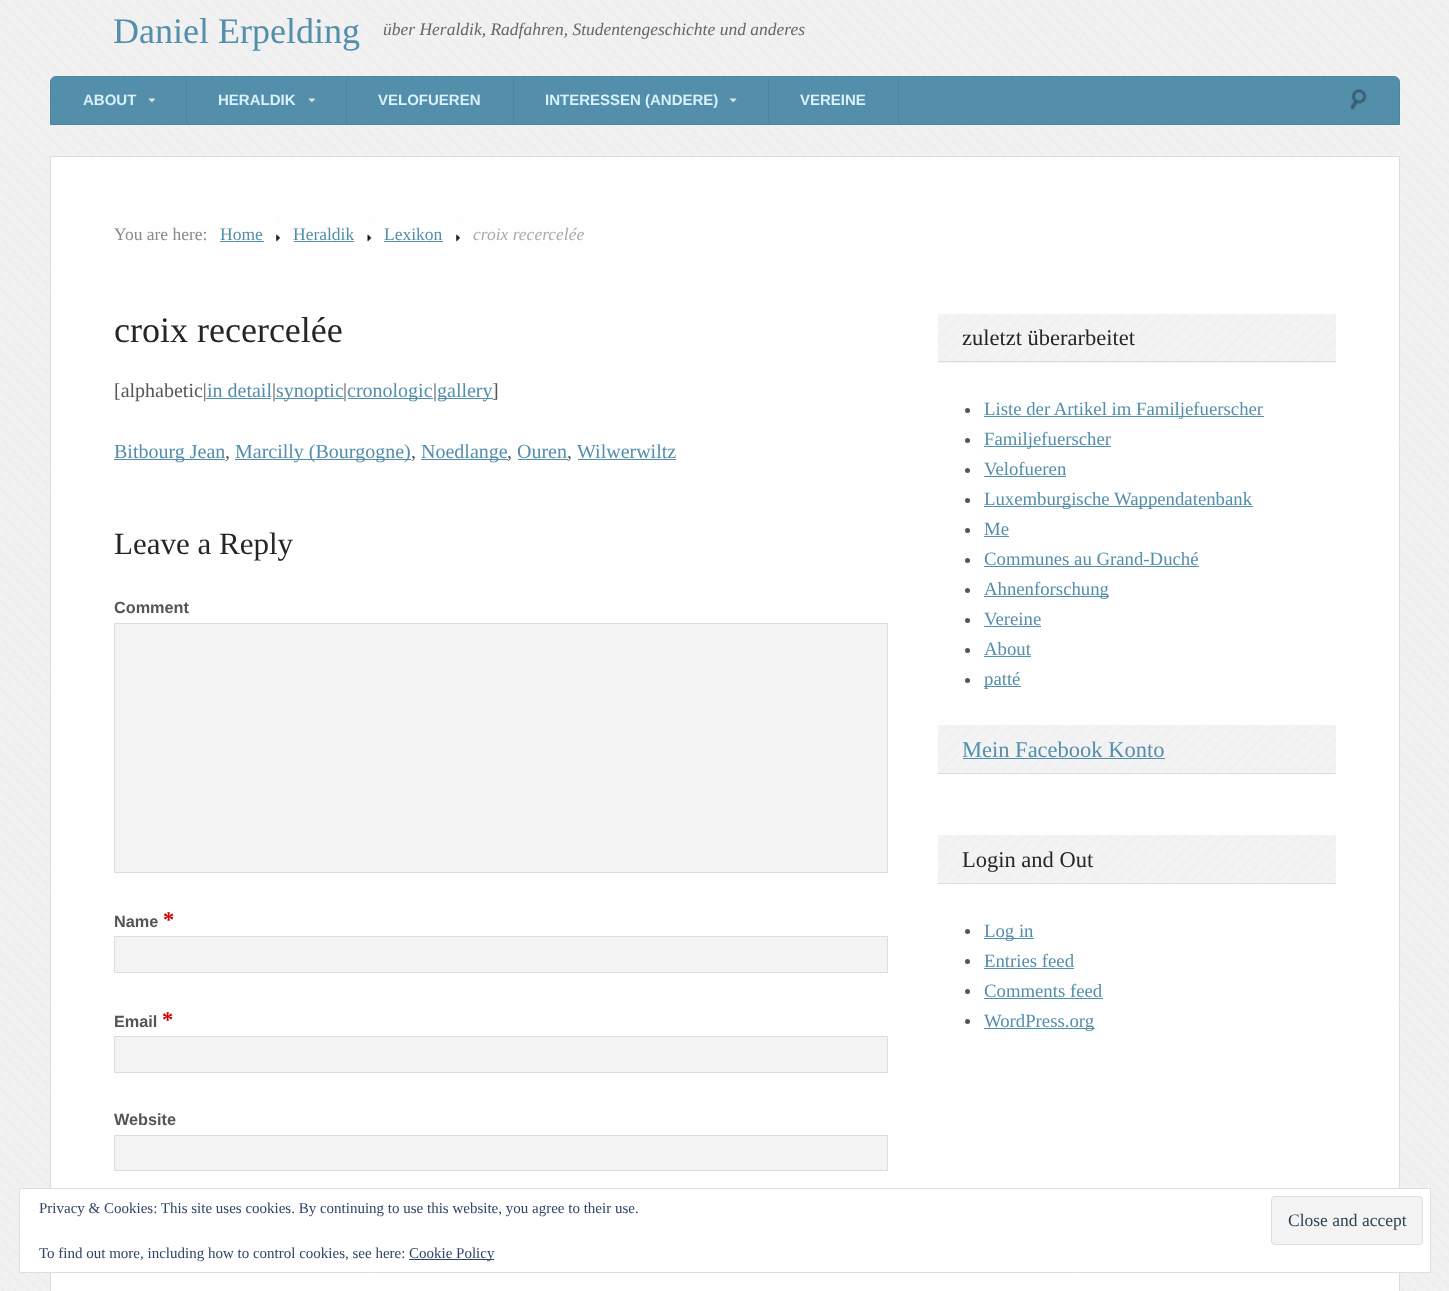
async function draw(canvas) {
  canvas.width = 1449;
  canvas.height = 1291;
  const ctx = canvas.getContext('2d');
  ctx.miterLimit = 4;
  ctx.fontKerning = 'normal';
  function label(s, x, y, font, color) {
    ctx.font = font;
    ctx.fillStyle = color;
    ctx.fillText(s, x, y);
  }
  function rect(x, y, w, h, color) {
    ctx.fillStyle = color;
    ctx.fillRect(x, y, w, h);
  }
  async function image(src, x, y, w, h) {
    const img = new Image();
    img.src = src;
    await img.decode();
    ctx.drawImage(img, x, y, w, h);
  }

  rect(0, 0, 1449, 1291, '#f1f1f1');
  await image('assets/img1.png', 0, 0, 1449, 1291);
  label('Daniel Erpelding', 113, 43, '36px Liberation Serif', '#538eab');
  label('über Heraldik, Radfahren, Studentengeschichte und anderes', 383, 35, 'italic 17.5px Liberation Serif', '#666');
  ctx.fillStyle = '#538eab';
  ctx.beginPath();
  ctx.roundRect(50.5, 76.5, 1349, 48, [5.5, 5.5, 0, 0]);
  ctx.fill();
  ctx.strokeStyle = '#4b85a1';
  ctx.stroke();
  rect(186, 78, 1, 46, '#4b85a1');
  label('ABOUT', 83, 105, 'bold 15px Liberation Sans', '#d8f1fc');
  await image('assets/img2.png', 148, 98, 7, 5);
  rect(346, 78, 1, 46, '#4b85a1');
  label('HERALDIK', 218, 105, 'bold 15px Liberation Sans', '#d8f1fc');
  await image('assets/img3.png', 308, 98, 7, 5);
  rect(513, 78, 1, 46, '#4b85a1');
  label('VELOFUEREN', 378, 105, 'bold 15px Liberation Sans', '#d8f1fc');
  rect(768, 78, 1, 46, '#4b85a1');
  label('INTERESSEN (ANDERE)', 545, 105, 'bold 15px Liberation Sans', '#d8f1fc');
  await image('assets/img4.png', 730, 98, 7, 5);
  rect(898, 78, 1, 46, '#4b85a1');
  label('VEREINE', 800, 105, 'bold 15px Liberation Sans', '#d8f1fc');
  await image('assets/img5.png', 1350, 88, 17, 22);
  ctx.fillStyle = '#fefefe';
  ctx.beginPath();
  ctx.rect(50.5, 156.5, 1349, 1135);
  ctx.fill();
  ctx.strokeStyle = '#ddd';
  ctx.stroke();
  label('You are here:', 114, 240, '17.5px Liberation Serif', '#888');
  label('Home', 220, 240, '17.5px Liberation Serif', '#538eab');
  rect(220, 241, 44, 1, '#538eab');
  await image('assets/img6.png', 276, 219, 4, 23);
  label('Heraldik', 293, 240, '17.5px Liberation Serif', '#538eab');
  rect(294, 241, 60, 1, '#538eab');
  await image('assets/img7.png', 367, 219, 5, 23);
  label('Lexikon', 384, 240, '17.5px Liberation Serif', '#538eab');
  rect(384, 241, 59, 1, '#538eab');
  await image('assets/img6.png', 456, 219, 4, 23);
  label('croix recercelée', 473, 240, 'italic 17.5px Liberation Serif', '#aaa');
  label('croix recercelée', 114, 342, '36px Liberation Serif', '#252525');
  label('[alphabetic|', 114, 397, '20px Liberation Serif', '#555');
  label('in detail', 207, 397, '20px Liberation Serif', '#538eab');
  rect(206, 398, 65, 1, '#538eab');
  label('|', 272, 397, '20px Liberation Serif', '#555');
  rect(275, 398, 69, 1, '#538eab');
  label('synoptic', 276, 397, '20px Liberation Serif', '#538eab');
  label('|', 343, 397, '20px Liberation Serif', '#555');
  rect(348, 398, 85, 1, '#538eab');
  label('cronologic', 347, 397, '20px Liberation Serif', '#538eab');
  label('|', 433, 397, '20px Liberation Serif', '#555');
  rect(438, 398, 55, 1, '#538eab');
  label('gallery', 437, 397, '20px Liberation Serif', '#538eab');
  label(']', 492, 397, '20px Liberation Serif', '#555');
  rect(114, 459, 111, 1, '#538eab');
  label('Bitbourg Jean', 114, 458, '20px Liberation Serif', '#538eab');
  label(',', 225, 458, '20px Liberation Serif', '#555');
  rect(235, 459, 176, 1, '#538eab');
  label('Marcilly (Bourgogne)', 235, 458, '20px Liberation Serif', '#538eab');
  label(',', 411, 458, '20px Liberation Serif', '#555');
  rect(421, 459, 87, 1, '#538eab');
  label('Noedlange', 421, 458, '20px Liberation Serif', '#538eab');
  label(',', 507, 458, '20px Liberation Serif', '#555');
  label('Ouren', 517, 458, '20px Liberation Serif', '#538eab');
  rect(518, 459, 50, 1, '#538eab');
  label(',', 567, 458, '20px Liberation Serif', '#555');
  label('Wilwerwiltz', 577, 458, '20px Liberation Serif', '#538eab');
  rect(578, 459, 98, 1, '#538eab');
  label('Leave a Reply', 114, 554, '31px Liberation Serif', '#252525');
  label('Comment', 114, 613, 'bold 16.25px Liberation Sans', '#555');
  ctx.fillStyle = '#f3f3f3';
  ctx.beginPath();
  ctx.rect(114.5, 623.5, 773, 249);
  ctx.fill();
  ctx.stroke();
  label('Name', 114, 927, 'bold 16.25px Liberation Sans', '#555');
  label('*', 163, 927, 'bold 22.5px Liberation Serif', '#c00');
  ctx.fillStyle = '#f3f3f3';
  ctx.beginPath();
  ctx.rect(114.5, 936.5, 773, 36);
  ctx.fill();
  ctx.stroke();
  label('Email', 114, 1027, 'bold 16.25px Liberation Sans', '#555');
  label('*', 162, 1027, 'bold 22.5px Liberation Serif', '#c00');
  ctx.fillStyle = '#f3f3f3';
  ctx.beginPath();
  ctx.rect(114.5, 1036.5, 773, 36);
  ctx.fill();
  ctx.stroke();
  label('Website', 114, 1125, 'bold 16.25px Liberation Sans', '#555');
  ctx.fillStyle = '#f3f3f3';
  ctx.beginPath();
  ctx.rect(114.5, 1135.5, 773, 35);
  ctx.fill();
  ctx.stroke();
  rect(938, 314, 398, 49, '#f3f3f3');
  await image('assets/img8.png', 938, 314, 398, 47);
  rect(938, 361, 398, 1, '#ddd');
  label('zuletzt überarbeitet', 962, 345, '22.5px Liberation Serif', '#252525');
  ctx.fillStyle = '#555';
  ctx.beginPath();
  ctx.arc(967.5, 410.5, 2.5, 0, 2 * Math.PI);
  ctx.fill();
  rect(984, 416, 280, 1, '#538eab');
  label('Liste der Artikel im Familjefuerscher', 984, 415, '18.75px Liberation Serif', '#538eab');
  ctx.fillStyle = '#555';
  ctx.beginPath();
  ctx.arc(967.5, 440.5, 2.5, 0, 2 * Math.PI);
  ctx.fill();
  rect(984, 446, 127, 1, '#538eab');
  label('Familjefuerscher', 984, 445, '18.75px Liberation Serif', '#538eab');
  ctx.fillStyle = '#555';
  ctx.beginPath();
  ctx.arc(967.5, 470.5, 2.5, 0, 2 * Math.PI);
  ctx.fill();
  label('Velofueren', 984, 475, '18.75px Liberation Serif', '#538eab');
  rect(984, 476, 82, 1, '#538eab');
  ctx.fillStyle = '#555';
  ctx.beginPath();
  ctx.arc(967.5, 500.5, 2.5, 0, 2 * Math.PI);
  ctx.fill();
  rect(984, 506, 269, 1, '#538eab');
  label('Luxemburgische Wappendatenbank', 984, 505, '18.75px Liberation Serif', '#538eab');
  ctx.fillStyle = '#555';
  ctx.beginPath();
  ctx.arc(967.5, 530.5, 2.5, 0, 2 * Math.PI);
  ctx.fill();
  label('Me', 984, 535, '18.75px Liberation Serif', '#538eab');
  rect(984, 536, 25, 1, '#538eab');
  ctx.fillStyle = '#555';
  ctx.beginPath();
  ctx.arc(967.5, 560.5, 2.5, 0, 2 * Math.PI);
  ctx.fill();
  label('Communes au Grand-Duché', 984, 565, '18.75px Liberation Serif', '#538eab');
  rect(984, 566, 215, 1, '#538eab');
  ctx.fillStyle = '#555';
  ctx.beginPath();
  ctx.arc(967.5, 590.5, 2.5, 0, 2 * Math.PI);
  ctx.fill();
  rect(984, 596, 125, 1, '#538eab');
  label('Ahnenforschung', 984, 595, '18.75px Liberation Serif', '#538eab');
  ctx.fillStyle = '#555';
  ctx.beginPath();
  ctx.arc(967.5, 620.5, 2.5, 0, 2 * Math.PI);
  ctx.fill();
  label('Vereine', 984, 625, '18.75px Liberation Serif', '#538eab');
  rect(984, 626, 57, 1, '#538eab');
  ctx.fillStyle = '#555';
  ctx.beginPath();
  ctx.arc(967.5, 650.5, 2.5, 0, 2 * Math.PI);
  ctx.fill();
  label('About', 984, 655, '18.75px Liberation Serif', '#538eab');
  rect(984, 656, 47, 1, '#538eab');
  ctx.fillStyle = '#555';
  ctx.beginPath();
  ctx.arc(967.5, 680.5, 2.5, 0, 2 * Math.PI);
  ctx.fill();
  rect(984, 686, 37, 1, '#538eab');
  label('patté', 984, 685, '18.75px Liberation Serif', '#538eab');
  rect(938, 725, 398, 48, '#f3f3f3');
  await image('assets/img9.png', 938, 725, 398, 47);
  rect(938, 773, 398, 1, '#ddd');
  label('Mein Facebook Konto', 962, 757, '22.5px Liberation Serif', '#538eab');
  rect(963, 758, 202, 1, '#538eab');
  rect(938, 835, 398, 48, '#f3f3f3');
  await image('assets/img9.png', 938, 835, 398, 47);
  rect(938, 883, 398, 1, '#ddd');
  label('Login and Out', 962, 867, '22.5px Liberation Serif', '#252525');
  ctx.fillStyle = '#555';
  ctx.beginPath();
  ctx.arc(967.5, 931.5, 2.5, 0, 2 * Math.PI);
  ctx.fill();
  rect(984, 938, 50, 1, '#538eab');
  label('Log in', 984, 937, '18.75px Liberation Serif', '#538eab');
  ctx.fillStyle = '#555';
  ctx.beginPath();
  ctx.arc(967.5, 961.5, 2.5, 0, 2 * Math.PI);
  ctx.fill();
  label('Entries feed', 984, 967, '18.75px Liberation Serif', '#538eab');
  rect(984, 968, 90, 1, '#538eab');
  ctx.fillStyle = '#555';
  ctx.beginPath();
  ctx.arc(967.5, 991.5, 2.5, 0, 2 * Math.PI);
  ctx.fill();
  label('Comments feed', 984, 997, '18.75px Liberation Serif', '#538eab');
  rect(984, 998, 119, 1, '#538eab');
  ctx.fillStyle = '#555';
  ctx.beginPath();
  ctx.arc(967.5, 1021.5, 2.5, 0, 2 * Math.PI);
  ctx.fill();
  rect(984, 1028, 111, 1, '#538eab');
  label('WordPress.org', 984, 1027, '18.75px Liberation Serif', '#538eab');
  ctx.fillStyle = '#fff';
  ctx.beginPath();
  ctx.rect(19.5, 1188.5, 1411, 84);
  ctx.fill();
  ctx.strokeStyle = '#dedede';
  ctx.stroke();
  label('Privacy & Cookies: This site uses cookies. By continuing to use this website, you agree to their use.', 39, 1213, '15px Liberation Serif', '#2e4467');
  ctx.fillStyle = '#f3f3f3';
  ctx.beginPath();
  ctx.roundRect(1271.5, 1196.5, 151, 48, 3.5);
  ctx.fill();
  ctx.stroke();
  label('Close and accept', 1288, 1226, '17.5px Liberation Serif', '#2e4453');
  label('To find out more, including how to control cookies, see here:', 39, 1258, '15px Liberation Serif', '#2e4467');
  rect(409, 1259, 85, 1, '#2e4467');
  label('Cookie Policy', 409, 1258, '15px Liberation Serif', '#2e4467');
}

draw(document.querySelector('canvas'));
